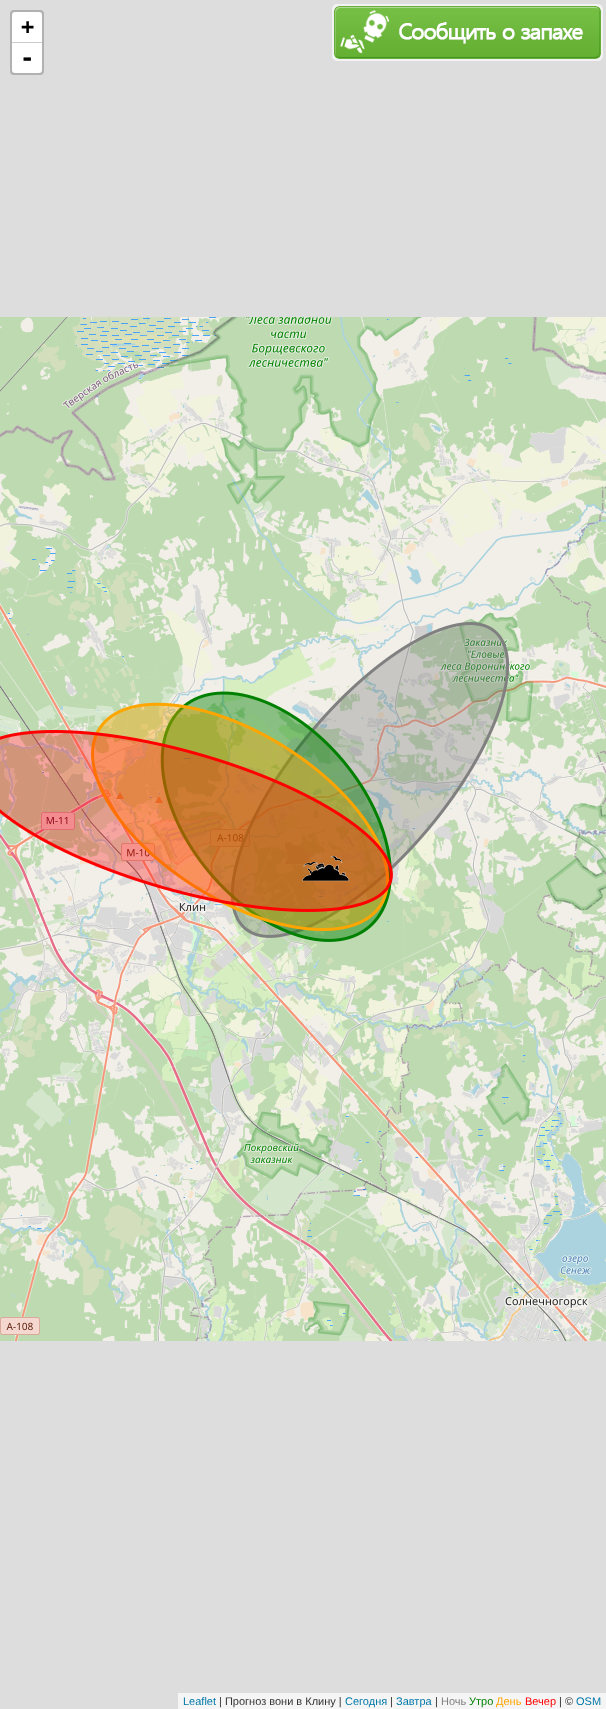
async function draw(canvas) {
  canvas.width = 606;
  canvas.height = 1709;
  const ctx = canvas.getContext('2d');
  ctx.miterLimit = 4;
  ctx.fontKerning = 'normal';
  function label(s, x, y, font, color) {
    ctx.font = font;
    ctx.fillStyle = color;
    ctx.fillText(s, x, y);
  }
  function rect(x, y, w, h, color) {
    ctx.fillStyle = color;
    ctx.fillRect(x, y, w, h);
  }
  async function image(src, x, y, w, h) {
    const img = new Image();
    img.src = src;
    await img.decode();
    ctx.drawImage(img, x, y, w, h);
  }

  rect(0, 0, 606, 1709, '#ddd');
  await image('assets/img1.png', 332, 4, 271, 57);
  ctx.beginPath();
  ctx.roundRect(11, 11, 32, 63, 3);
  ctx.strokeStyle = '#b1b1b1';
  ctx.lineWidth = 2;
  ctx.stroke();
  ctx.fillStyle = '#fff';
  ctx.beginPath();
  ctx.roundRect(12, 12, 30, 31, [4, 4, 0, 0]);
  ctx.fill();
  rect(12, 42, 30, 1, '#ccc');
  label('+', 21, 34, 'bold 22px DejaVu Sans Mono', '#000');
  ctx.fillStyle = '#fff';
  ctx.beginPath();
  ctx.roundRect(12, 43, 30, 30, [0, 0, 4, 4]);
  ctx.fill();
  label('-', 20, 66, 'bold 24px DejaVu Sans Mono', '#000');
  rect(178, 1693, 428, 16, '#f5f5f5');
  label('Leaflet', 183, 1705, '11px Liberation Sans', '#0078a8');
  label('| Прогноз вони в Клину |', 219, 1705, '11px Liberation Sans', '#333');
  label('Сегодня', 345, 1705, '11px Liberation Sans', '#0078a8');
  label('|', 390, 1705, '11px Liberation Sans', '#333');
  label('Завтра', 396, 1705, '11px Liberation Sans', '#0078a8');
  label('|', 435, 1705, '11px Liberation Sans', '#333');
  label('Ночь', 441, 1705, '11px Liberation Sans', '#808080');
  label('Утро', 469, 1705, '11px Liberation Sans', '#008000');
  label('День', 496, 1705, '11px Liberation Sans', '#ffa500');
  label('Вечер', 525, 1705, '11px Liberation Sans', '#f00');
  label('| ©', 559, 1705, '11px Liberation Sans', '#333');
  label('OSM', 576, 1705, '11px Liberation Sans', '#0078a8');
  await image('assets/img2.png', 0, 317, 197, 256);
  await image('assets/img3.png', 197, 317, 256, 256);
  await image('assets/img4.png', 453, 317, 153, 256);
  await image('assets/img5.png', 0, 573, 197, 256);
  await image('assets/img6.png', 197, 573, 256, 256);
  await image('assets/img7.png', 453, 573, 153, 256);
  await image('assets/img8.png', 0, 829, 197, 256);
  await image('assets/img9.png', 197, 829, 256, 256);
  await image('assets/img10.png', 453, 829, 153, 256);
  await image('assets/img11.png', 0, 1085, 197, 256);
  await image('assets/img12.png', 197, 1085, 256, 256);
  await image('assets/img13.png', 453, 1085, 153, 256);
  await image('assets/img14.png', 0, 622, 510, 320);
  await image('assets/img15.png', 302, 854, 48, 29);
}

draw(document.querySelector('canvas'));
